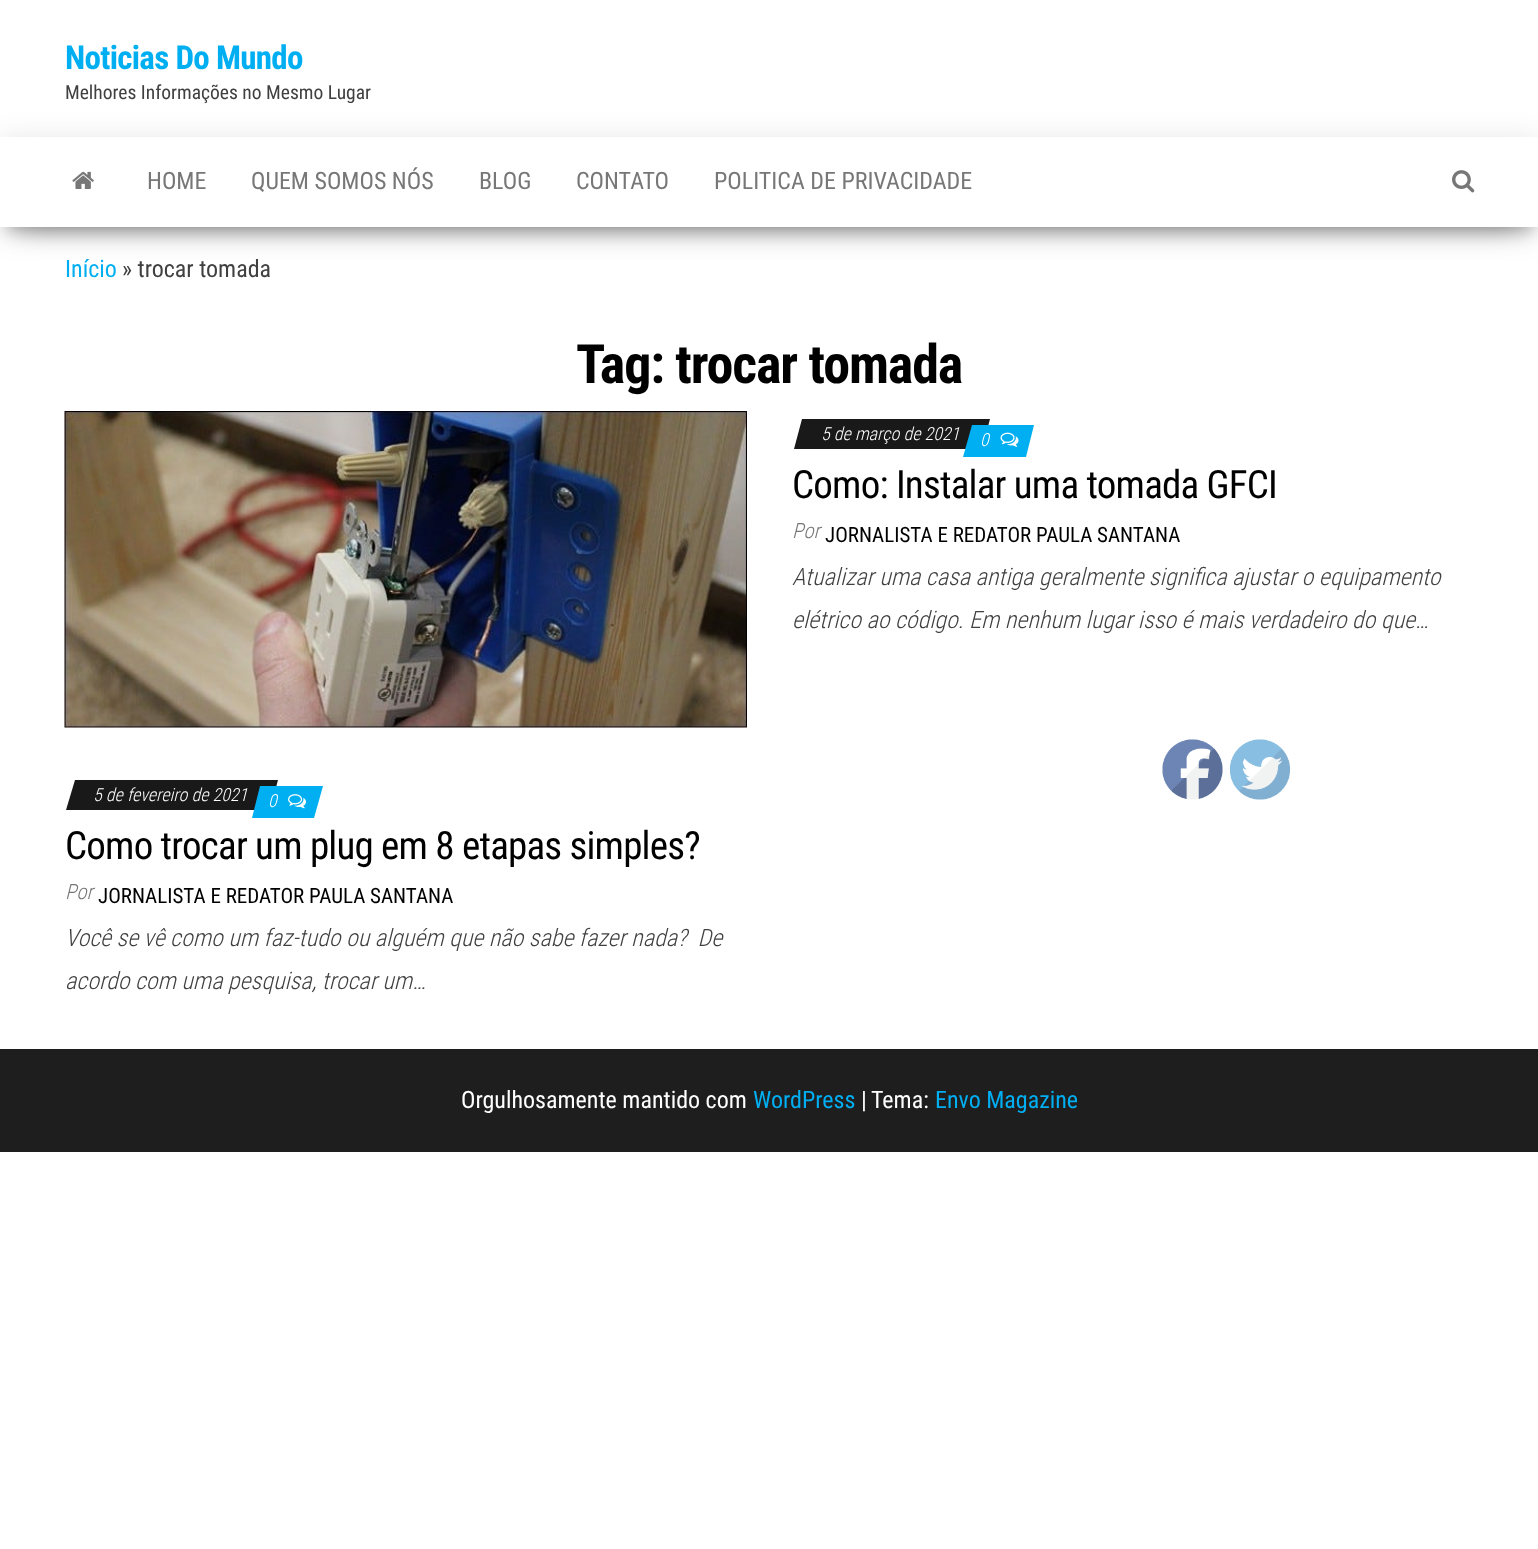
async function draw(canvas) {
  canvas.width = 1538;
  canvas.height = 1549;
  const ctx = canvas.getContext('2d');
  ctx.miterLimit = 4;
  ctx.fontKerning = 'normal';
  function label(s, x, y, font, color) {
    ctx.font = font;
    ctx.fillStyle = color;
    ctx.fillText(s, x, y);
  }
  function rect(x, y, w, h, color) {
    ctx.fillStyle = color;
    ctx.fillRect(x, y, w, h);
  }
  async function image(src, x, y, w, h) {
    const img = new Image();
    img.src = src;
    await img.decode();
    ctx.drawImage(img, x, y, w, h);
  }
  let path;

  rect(0, 0, 1538, 1549, '#fff');
  ctx.letterSpacing = '-0.7px';
  label('Noticias Do Mundo', 65, 69, 'bold 33px Roboto Condensed', '#00aff2');
  ctx.fillStyle = '#0000001f';
  ctx.filter = 'blur(15px)';
  ctx.beginPath();
  ctx.rect(0, 141, 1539, 90);
  ctx.fill();
  ctx.filter = 'none';
  ctx.letterSpacing = '0px';
  label('Melhores Informações no Mesmo Lugar', 65, 99, '19.5px Roboto Condensed', '#404040');
  ctx.fillStyle = '#00000033';
  ctx.filter = 'blur(7.5px)';
  ctx.beginPath();
  ctx.rect(8, 156, 1524, 75);
  ctx.fill();
  ctx.filter = 'none';
  ctx.fillStyle = '#0000006b';
  ctx.filter = 'blur(15px)';
  ctx.beginPath();
  ctx.rect(18, 170, 1503, 54);
  ctx.fill();
  ctx.filter = 'none';
  rect(0, 137, 1538, 90, '#fff');
  await image('assets/img1.png', 72, 171, 22, 18);
  label('HOME', 147, 189, '24px Roboto Condensed', '#777');
  label('QUEM SOMOS NÓS', 251, 189, '24px Roboto Condensed', '#777');
  label('BLOG', 479, 189, '24px Roboto Condensed', '#777');
  label('CONTATO', 576, 189, '24px Roboto Condensed', '#777');
  label('POLITICA DE PRIVACIDADE', 714, 189, '24px Roboto Condensed', '#777');
  await image('assets/img2.png', 1452, 170, 23, 23);
  label('Início', 65, 277, '24px Roboto Condensed', '#00aff2');
  label('» trocar tomada', 122, 277, '24px Roboto Condensed', '#404040');
  ctx.letterSpacing = '-1.1px';
  label('Tag: trocar tomada', 576, 383, 'bold 54px Roboto Condensed', '#000');
  await image('assets/img3.png', 64, 411, 683, 317);
  ctx.fillStyle = '#191919';
  path = new Path2D('M802 419H990L982 449H794Z');
  ctx.fill(path);
  ctx.letterSpacing = '0px';
  label('5 de março de 2021', 821, 440, 'italic 300 18px Roboto Condensed', '#fff');
  ctx.fillStyle = '#00aff2';
  path = new Path2D('M972 425H1034L1026 457H963Z');
  ctx.fill(path);
  label('0', 980, 446, 'italic 300 18px Roboto Condensed', '#fff');
  await image('assets/img4.png', 1000, 432, 19, 15);
  ctx.letterSpacing = '-0.8px';
  label('Como: Instalar uma tomada GFCI', 792, 498, '39px Roboto Condensed', '#000');
  ctx.letterSpacing = '0px';
  label('Por', 792, 538, 'italic 300 21px Roboto Condensed', '#777');
  label('JORNALISTA E REDATOR PAULA SANTANA', 825, 542, '21px Roboto Condensed', '#000');
  label('Atualizar uma casa antiga geralmente significa ajustar o equipamento', 792, 585, 'italic 300 24px Roboto Condensed', '#404040');
  label('elétrico ao código. Em nenhum lugar isso é mais verdadeiro do que…', 792, 628, 'italic 300 24px Roboto Condensed', '#404040');
  ctx.fillStyle = '#191919';
  path = new Path2D('M75 780H278L270 810H66Z');
  ctx.fill(path);
  label('5 de fevereiro de 2021', 93, 801, 'italic 300 18px Roboto Condensed', '#fff');
  ctx.fillStyle = '#00aff2';
  path = new Path2D('M260 786H323L314 818H252Z');
  ctx.fill(path);
  label('0', 268, 807, 'italic 300 18px Roboto Condensed', '#fff');
  await image('assets/img5.png', 288, 794, 18, 15);
  ctx.letterSpacing = '-0.8px';
  label('Como trocar um plug em 8 etapas simples?', 65, 859, '39px Roboto Condensed', '#000');
  ctx.letterSpacing = '0px';
  label('Por', 65, 899, 'italic 300 21px Roboto Condensed', '#777');
  label('JORNALISTA E REDATOR PAULA SANTANA', 98, 903, '21px Roboto Condensed', '#000');
  label('Você se vê como um faz-tudo ou alguém que não sabe fazer nada?  De', 65, 946, 'italic 300 24px Roboto Condensed', '#404040');
  label('acordo com uma pesquisa, trocar um…', 65, 989, 'italic 300 24px Roboto Condensed', '#404040');
  await image('assets/img6.png', 1162, 739, 61, 61);
  await image('assets/img7.png', 1230, 739, 60, 61);
  rect(0, 1049, 1538, 103, '#1e1e1e');
  label('Orgulhosamente mantido com', 461, 1108, '24px Roboto Condensed', '#fff');
  label('WordPress', 753, 1108, '24px Roboto Condensed', '#00aff2');
  label('|', 861, 1108, '24px Roboto Condensed', '#fff');
  label('Tema:', 871, 1108, '24px Roboto Condensed', '#fff');
  label('Envo Magazine', 935, 1108, '24px Roboto Condensed', '#00aff2');
}

draw(document.querySelector('canvas'));
